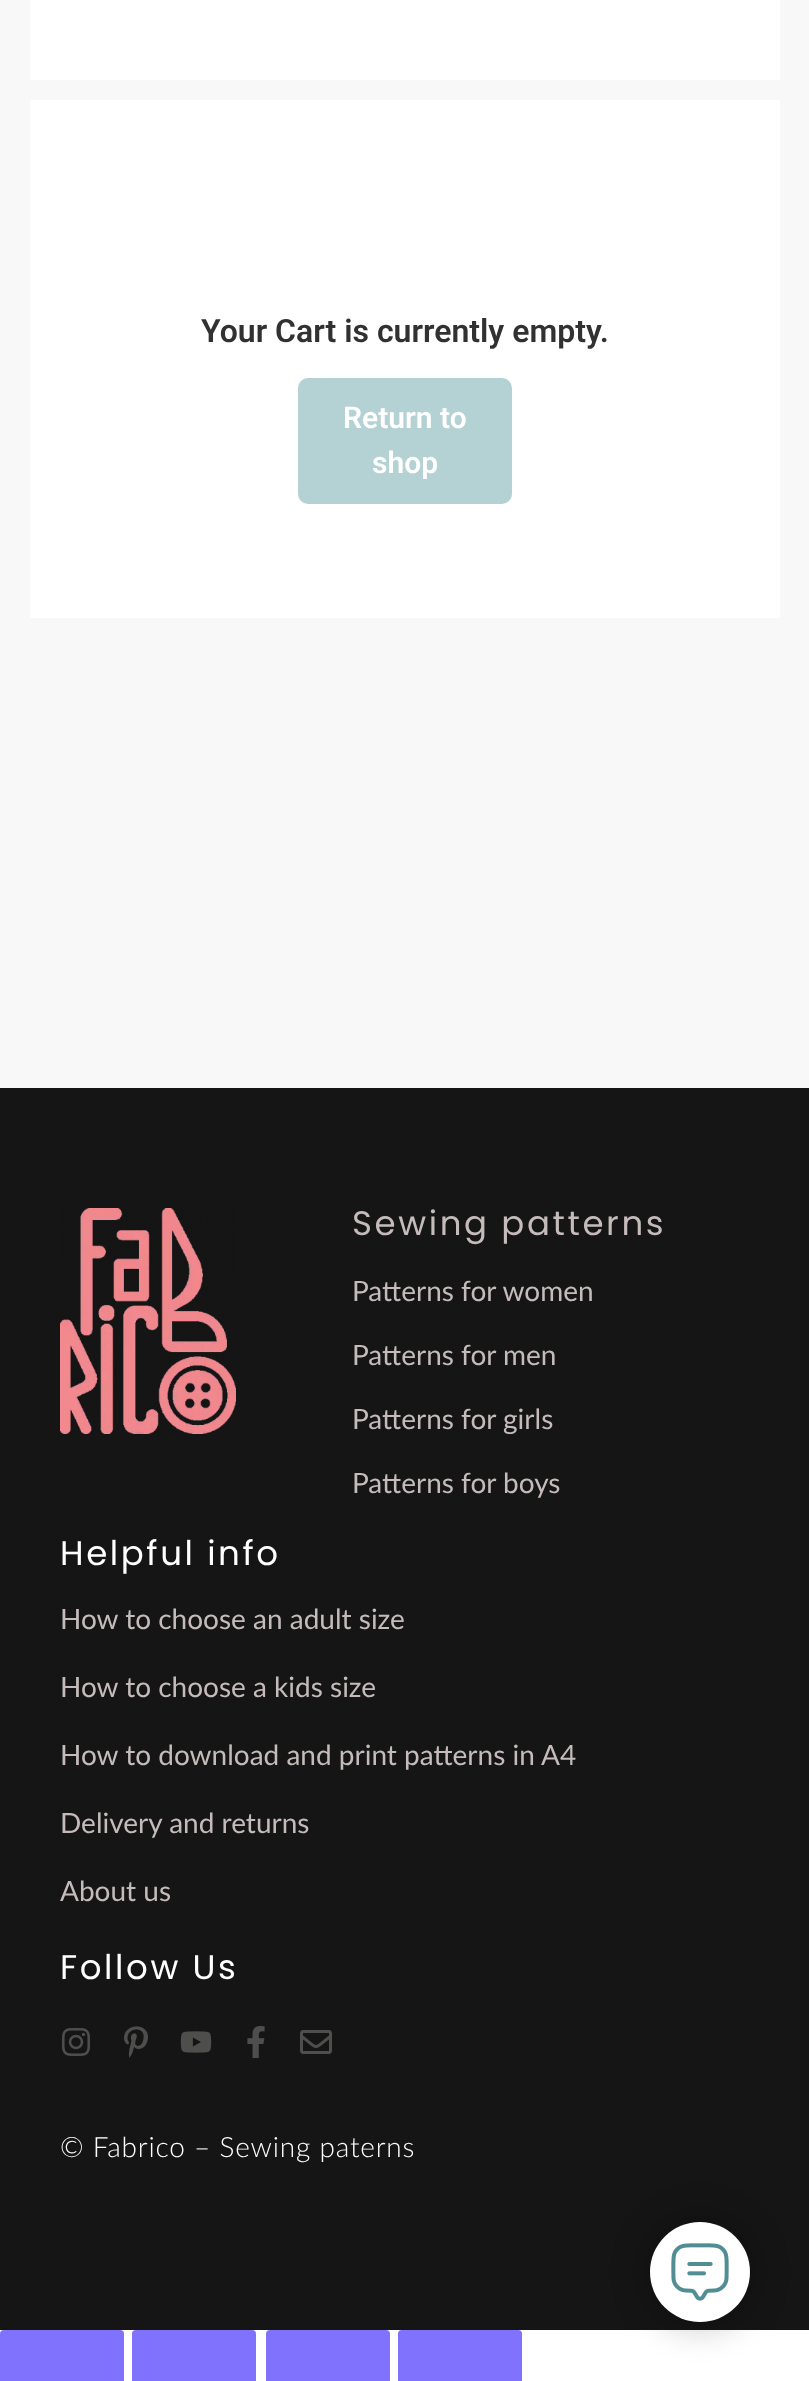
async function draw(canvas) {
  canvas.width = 809;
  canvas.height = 2381;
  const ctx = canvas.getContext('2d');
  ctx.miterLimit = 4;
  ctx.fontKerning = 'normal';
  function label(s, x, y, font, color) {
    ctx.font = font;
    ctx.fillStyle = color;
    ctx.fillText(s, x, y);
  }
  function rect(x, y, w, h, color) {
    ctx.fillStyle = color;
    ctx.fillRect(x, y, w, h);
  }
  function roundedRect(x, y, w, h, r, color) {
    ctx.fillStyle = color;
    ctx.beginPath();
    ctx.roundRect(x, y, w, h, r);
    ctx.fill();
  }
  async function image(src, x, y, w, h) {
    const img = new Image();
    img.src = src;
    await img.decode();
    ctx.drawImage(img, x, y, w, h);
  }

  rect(0, 0, 809, 2381, '#fff');
  rect(0, 0, 809, 1088, '#f8f8f8');
  rect(30, 0, 750, 80, '#fff');
  rect(30, 100, 750, 518, '#fff');
  label('Your Cart is currently empty.', 201, 342, '600 32px Roboto', '#313131');
  roundedRect(298, 378, 214, 126, 10, '#b4d1d4');
  label('Return to', 343, 428, '600 30px Roboto', '#fff');
  label('shop', 372, 473, '600 30px Roboto', '#fff');
  rect(0, 1088, 809, 1242, '#151515');
  await image('assets/img1.png', 60, 1208, 176, 226);
  ctx.letterSpacing = '2.6px';
  label('Sewing patterns', 352, 1235, '34px Poppins', '#c5bbbb');
  ctx.letterSpacing = '0px';
  label('Patterns for women', 352, 1301, '28px Lato', '#c5bbbb');
  label('Patterns for men', 352, 1365, '28px Lato', '#c5bbbb');
  label('Patterns for girls', 352, 1429, '28px Lato', '#c5bbbb');
  label('Patterns for boys', 352, 1493, '28px Lato', '#c5bbbb');
  ctx.letterSpacing = '2.6px';
  label('Helpful info', 60, 1565, '34px Poppins', '#fff');
  ctx.letterSpacing = '0px';
  label('How to choose an adult size', 60, 1629, '28px Lato', '#c5bbbb');
  label('How to choose a kids size', 60, 1697, '28px Lato', '#c5bbbb');
  label('How to download and print patterns in A4', 60, 1765, '28px Lato', '#c5bbbb');
  label('Delivery and returns', 60, 1833, '28px Lato', '#c5bbbb');
  label('About us', 60, 1901, '28px Lato', '#c5bbbb');
  ctx.letterSpacing = '2.6px';
  label('Follow Us', 60, 1979, '34px Poppins', '#fff');
  await image('assets/img2.png', 62, 2028, 28, 28);
  await image('assets/img3.png', 124, 2026, 24, 32);
  await image('assets/img4.png', 180, 2031, 32, 22);
  await image('assets/img5.png', 247, 2026, 18, 32);
  await image('assets/img6.png', 300, 2030, 32, 24);
  ctx.letterSpacing = '0.8px';
  label('© Fabrico – Sewing paterns', 60, 2157, '300 28px Lato', '#fff');
  ctx.fillStyle = '#8072fc';
  ctx.beginPath();
  ctx.roundRect(1, 2331, 122, 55, 3);
  ctx.fill();
  ctx.strokeStyle = '#8072fc';
  ctx.lineWidth = 2;
  ctx.stroke();
  ctx.beginPath();
  ctx.roundRect(133, 2331, 122, 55, 3);
  ctx.fill();
  ctx.stroke();
  ctx.beginPath();
  ctx.roundRect(267, 2331, 122, 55, 3);
  ctx.fill();
  ctx.stroke();
  ctx.beginPath();
  ctx.roundRect(399, 2331, 122, 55, 3);
  ctx.fill();
  ctx.stroke();
  ctx.fillStyle = '#00000033';
  ctx.filter = 'blur(16px)';
  ctx.beginPath();
  ctx.roundRect(642, 2214, 116, 116, 58);
  ctx.fill();
  ctx.filter = 'none';
  ctx.fillStyle = '#fff';
  ctx.beginPath();
  ctx.arc(700, 2272, 50, 0, 2 * Math.PI);
  ctx.fill();
  await image('assets/img7.png', 671, 2243, 58, 58);
}

draw(document.querySelector('canvas'));
